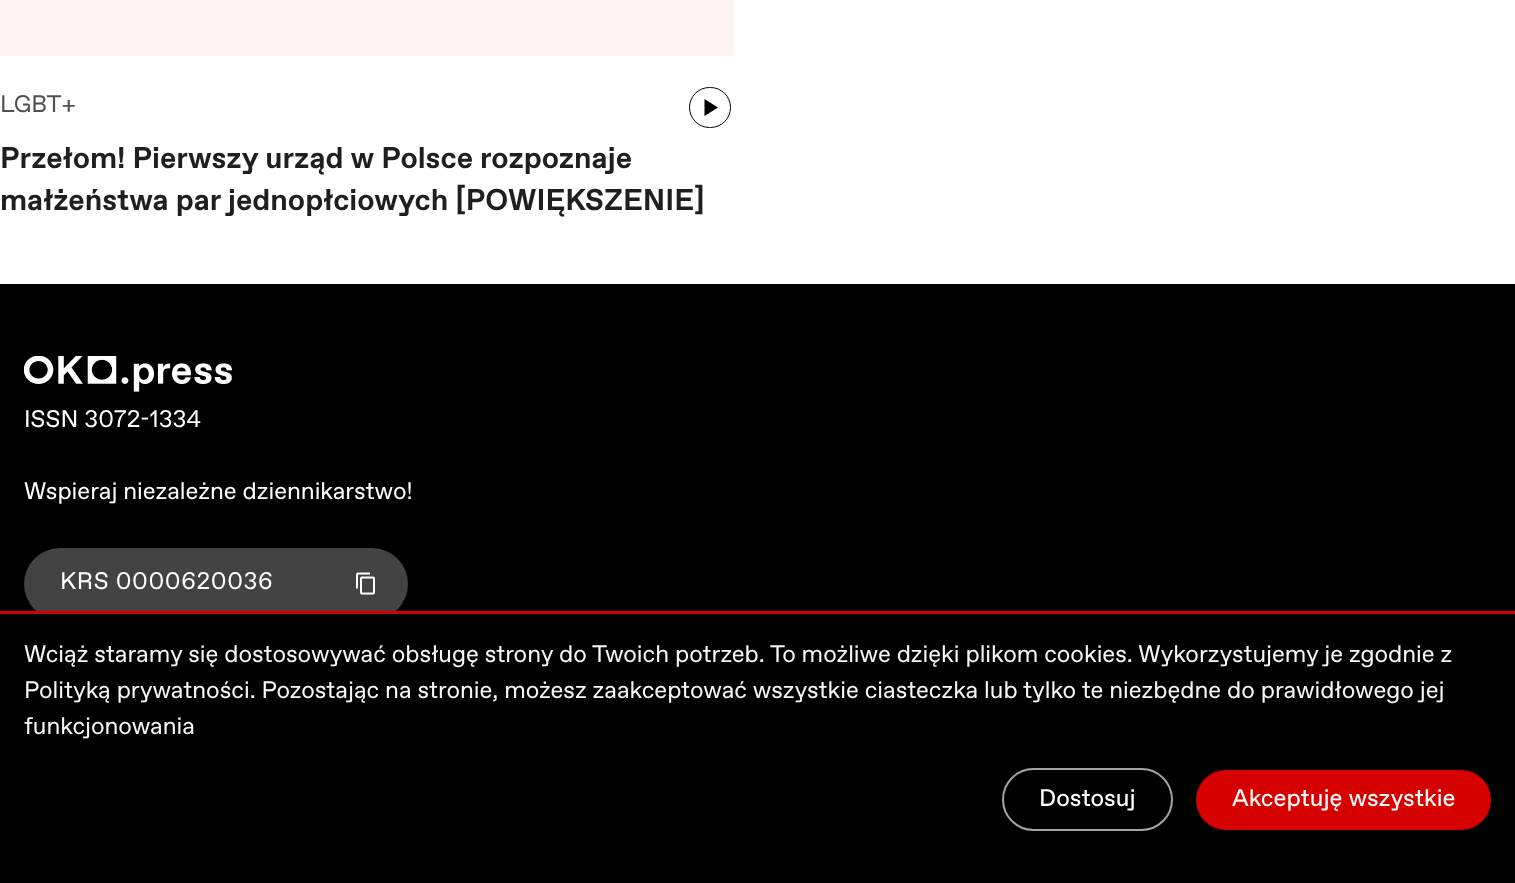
async function draw(canvas) {
  canvas.width = 1515;
  canvas.height = 883;
  const ctx = canvas.getContext('2d');
  ctx.miterLimit = 4;
  ctx.fontKerning = 'normal';
  function label(s, x, y, font, color) {
    ctx.font = font;
    ctx.fillStyle = color;
    ctx.fillText(s, x, y);
  }
  function rect(x, y, w, h, color) {
    ctx.fillStyle = color;
    ctx.fillRect(x, y, w, h);
  }
  function roundedRect(x, y, w, h, r, color) {
    ctx.fillStyle = color;
    ctx.beginPath();
    ctx.roundRect(x, y, w, h, r);
    ctx.fill();
  }
  async function image(src, x, y, w, h) {
    const img = new Image();
    img.src = src;
    await img.decode();
    ctx.drawImage(img, x, y, w, h);
  }
  let path;

  rect(0, 0, 1515, 883, '#fff');
  rect(0, 0, 734, 56, '#fdf2f2');
  label('LGBT+', 0, 112, '300 24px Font', '#515151');
  ctx.beginPath();
  ctx.roundRect(689.5, 87.5, 41, 40, 20);
  ctx.strokeStyle = '#000';
  ctx.stroke();
  ctx.fillStyle = '#000';
  path = new Path2D('M704.5 99V116L718 107.5Z');
  ctx.fill(path);
  label('Przełom! Pierwszy urząd w Polsce rozpoznaje', 0, 168, 'bold 30px Font', '#1f1f1f');
  label('małżeństwa par jednopłciowych [POWIĘKSZENIE]', 0, 210, 'bold 30px Font', '#1f1f1f');
  rect(0, 284, 1515, 327, '#000');
  await image('assets/img1.png', 24, 356, 208, 36);
  label('ISSN 3072-1334', 24, 427, '300 24px Font', '#fff');
  label('Wspieraj niezależne dziennikarstwo!', 24, 499, '300 24px Font', '#fff');
  roundedRect(24, 548, 384, 72, 36, '#434343');
  ctx.letterSpacing = '0.6px';
  label('KRS 0000620036', 60, 589, '300 24px Font', '#fff');
  await image('assets/img2.png', 356, 572, 19, 23);
  rect(0, 614, 1515, 269, '#000');
  rect(0, 611, 1515, 3, '#d60000');
  ctx.letterSpacing = '0px';
  label('Wciąż staramy się dostosowywać obsługę strony do Twoich potrzeb. To możliwe dzięki plikom cookies. Wykorzystujemy je zgodnie z', 24, 662, '300 24px Font', '#f7f7f7');
  label('Polityką prywatności. Pozostając na stronie, możesz zaakceptować wszystkie ciasteczka lub tylko te niezbędne do prawidłowego jej', 24, 698, '300 24px Font', '#f7f7f7');
  label('funkcjonowania', 24, 734, '300 24px Font', '#f7f7f7');
  ctx.beginPath();
  ctx.roundRect(1003, 769, 169, 61, 30.5);
  ctx.strokeStyle = '#a4a4a4';
  ctx.lineWidth = 2;
  ctx.stroke();
  label('Dostosuj', 1039, 806, '24px Font', '#fff');
  roundedRect(1196, 770, 295, 60, 30, '#d60000');
  label('Akceptuję wszystkie', 1232, 806, '24px Font', '#f7f7f7');
}

draw(document.querySelector('canvas'));
